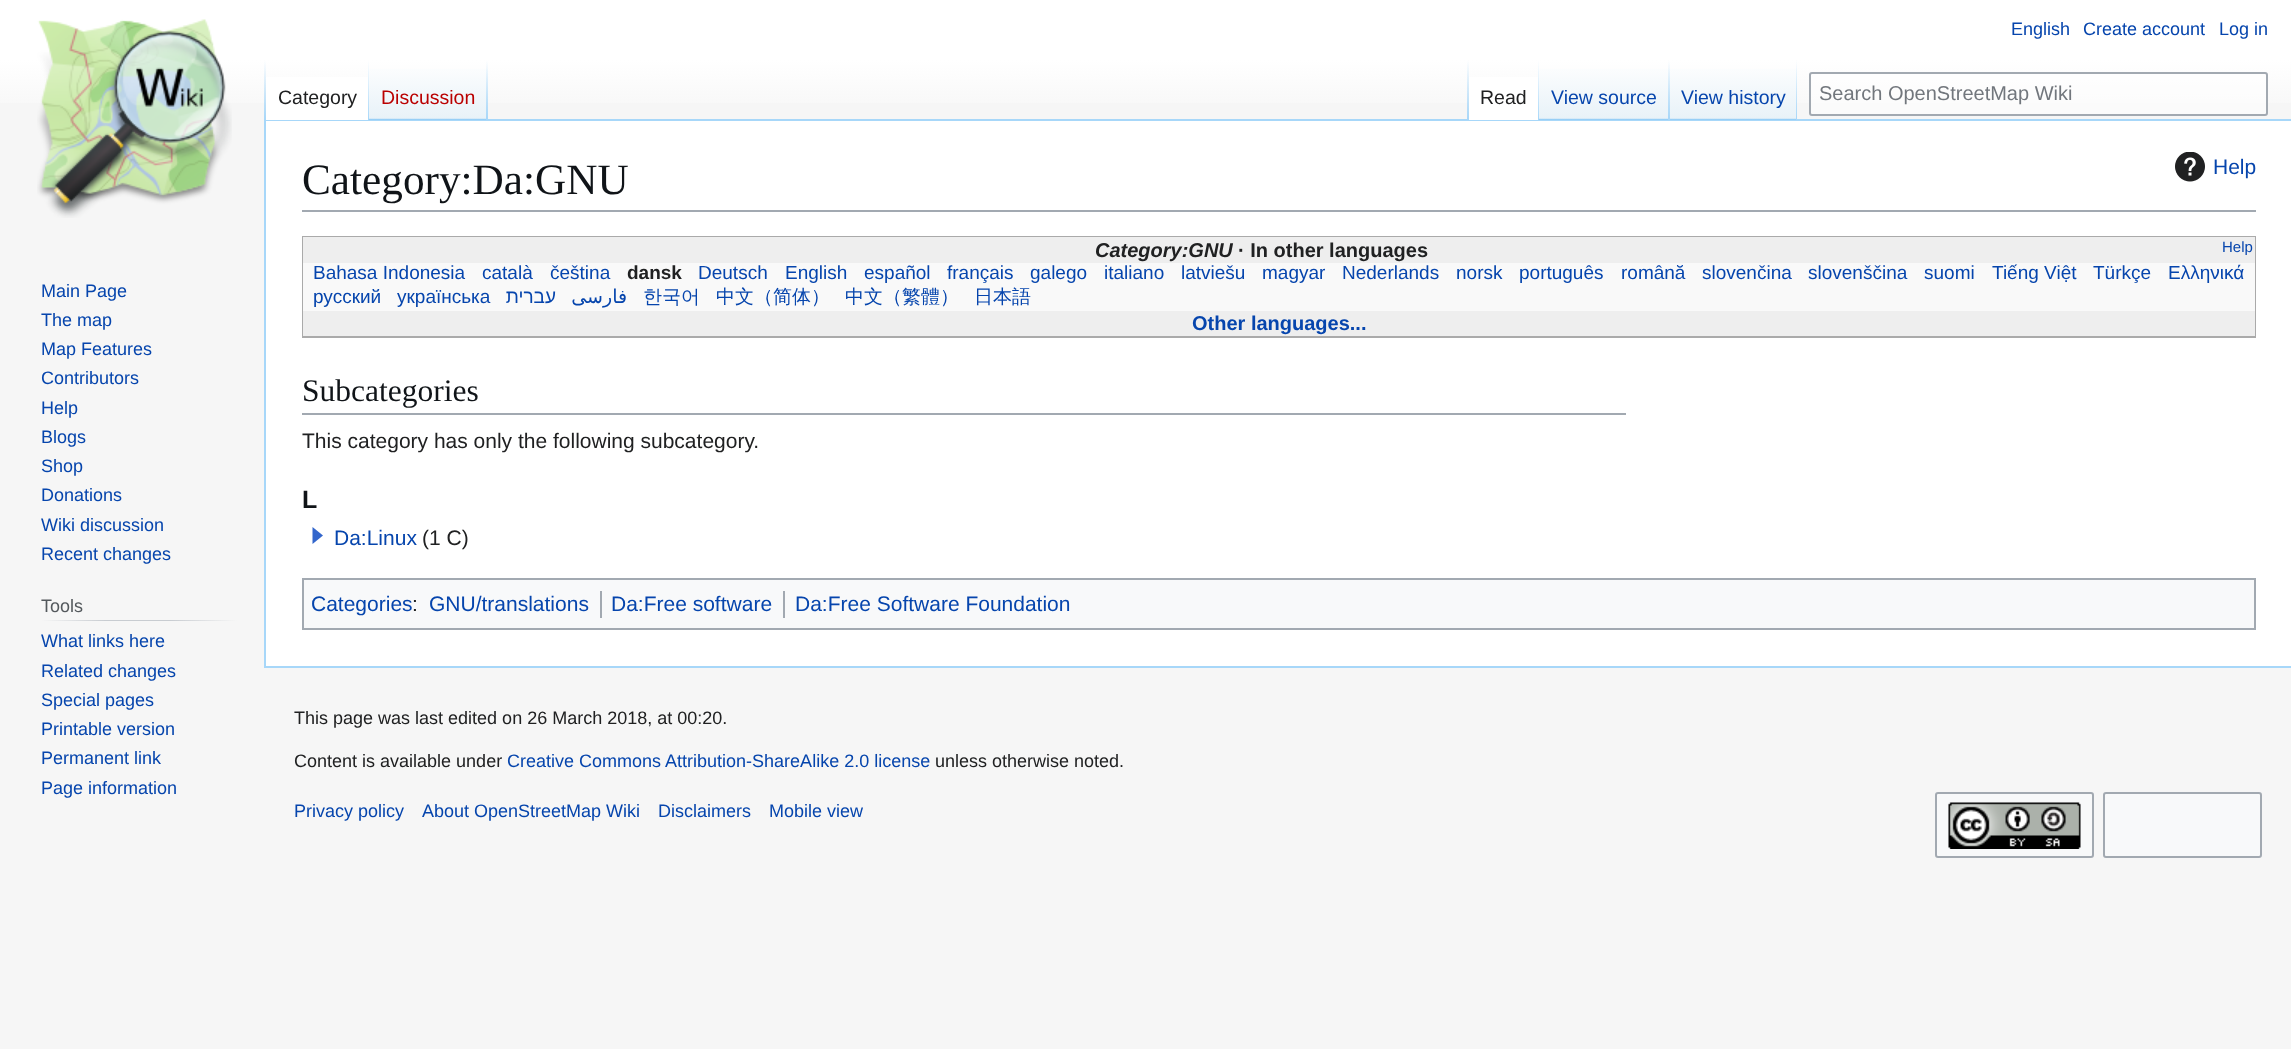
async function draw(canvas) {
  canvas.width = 2291;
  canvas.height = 1049;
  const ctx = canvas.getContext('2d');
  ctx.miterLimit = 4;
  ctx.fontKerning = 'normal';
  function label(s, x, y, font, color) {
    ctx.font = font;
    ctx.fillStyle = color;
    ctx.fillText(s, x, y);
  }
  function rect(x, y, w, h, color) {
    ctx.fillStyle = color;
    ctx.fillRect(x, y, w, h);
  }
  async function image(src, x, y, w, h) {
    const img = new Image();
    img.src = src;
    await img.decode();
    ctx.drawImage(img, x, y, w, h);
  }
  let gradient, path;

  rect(0, 0, 2291, 1049, '#f6f6f6');
  gradient = ctx.createLinearGradient(1146, 0, 1146, 120);
  gradient.addColorStop(0.5, '#fff');
  gradient.addColorStop(1, '#f6f6f6');
  ctx.fillStyle = gradient;
  ctx.fillRect(0, 0, 2291, 103);
  label('English', 2011, 35, '18px Liberation Sans', '#0645ad');
  label('Create account', 2083, 35, '18px Liberation Sans', '#0645ad');
  label('Log in', 2219, 35, '18px Liberation Sans', '#0645ad');
  rect(264, 119, 2027, 2, '#a7d7f9');
  rect(264, 666, 2027, 2, '#a7d7f9');
  rect(264, 119, 2, 549, '#a7d7f9');
  gradient = ctx.createLinearGradient(265, 60, 265, 120);
  gradient.addColorStop(0, '#a7d7f900');
  gradient.addColorStop(1, '#a7d7f9');
  ctx.fillStyle = gradient;
  ctx.fillRect(264, 60, 2, 60);
  rect(266, 77, 102, 43, '#fff');
  gradient = ctx.createLinearGradient(368, 60, 368, 120);
  gradient.addColorStop(0, '#fff');
  gradient.addColorStop(1, '#a7d7f9');
  ctx.fillStyle = gradient;
  ctx.fillRect(368, 60, 1, 60);
  label('Category', 278, 104, '19.5px Liberation Sans', '#202122');
  gradient = ctx.createLinearGradient(428, 120, 428, 60);
  gradient.addColorStop(0, '#77c1f6');
  gradient.addColorStop(0.03, '#e8f2f8');
  gradient.addColorStop(1, '#fff');
  ctx.fillStyle = gradient;
  ctx.fillRect(369, 69, 119, 51);
  gradient = ctx.createLinearGradient(487, 60, 487, 120);
  gradient.addColorStop(0, '#a7d7f900');
  gradient.addColorStop(1, '#a7d7f9');
  ctx.fillStyle = gradient;
  ctx.fillRect(486, 60, 2, 60);
  label('Discussion', 381, 104, '19.5px Liberation Sans', '#ba0000');
  gradient = ctx.createLinearGradient(1468, 60, 1468, 120);
  gradient.addColorStop(0, '#a7d7f900');
  gradient.addColorStop(1, '#a7d7f9');
  ctx.fillStyle = gradient;
  ctx.fillRect(1467, 60, 2, 60);
  rect(1469, 77, 69, 43, '#fff');
  gradient = ctx.createLinearGradient(1538, 60, 1538, 120);
  gradient.addColorStop(0, '#fff');
  gradient.addColorStop(1, '#a7d7f9');
  ctx.fillStyle = gradient;
  ctx.fillRect(1538, 60, 1, 60);
  label('Read', 1480, 104, '19.5px Liberation Sans', '#202122');
  gradient = ctx.createLinearGradient(1604, 120, 1604, 60);
  gradient.addColorStop(0, '#77c1f6');
  gradient.addColorStop(0.03, '#e8f2f8');
  gradient.addColorStop(1, '#fff');
  ctx.fillStyle = gradient;
  ctx.fillRect(1539, 69, 131, 51);
  gradient = ctx.createLinearGradient(1669, 60, 1669, 120);
  gradient.addColorStop(0, '#a7d7f900');
  gradient.addColorStop(1, '#a7d7f9');
  ctx.fillStyle = gradient;
  ctx.fillRect(1668, 60, 2, 60);
  label('View source', 1551, 104, '19.5px Liberation Sans', '#0645ad');
  gradient = ctx.createLinearGradient(1733, 120, 1733, 60);
  gradient.addColorStop(0, '#77c1f6');
  gradient.addColorStop(0.03, '#e8f2f8');
  gradient.addColorStop(1, '#fff');
  ctx.fillStyle = gradient;
  ctx.fillRect(1670, 69, 127, 51);
  gradient = ctx.createLinearGradient(1796, 60, 1796, 120);
  gradient.addColorStop(0, '#a7d7f900');
  gradient.addColorStop(1, '#a7d7f9');
  ctx.fillStyle = gradient;
  ctx.fillRect(1796, 60, 1, 60);
  label('View history', 1681, 104, '19.5px Liberation Sans', '#0645ad');
  ctx.fillStyle = '#ffffff80';
  ctx.beginPath();
  ctx.roundRect(1810, 73, 457, 42, 2);
  ctx.fill();
  ctx.strokeStyle = '#a2a9b1';
  ctx.lineWidth = 2;
  ctx.stroke();
  label('Search OpenStreetMap Wiki', 1819, 100, '20px Liberation Sans', '#72777d');
  await image('assets/img1.png', 37, 19, 195, 199);
  label('Main Page', 41, 297, '18px Liberation Sans', '#0645ad');
  label('The map', 41, 326, '18px Liberation Sans', '#0645ad');
  label('Map Features', 41, 355, '18px Liberation Sans', '#0645ad');
  label('Contributors', 41, 384, '18px Liberation Sans', '#0645ad');
  label('Help', 41, 414, '18px Liberation Sans', '#0645ad');
  label('Blogs', 41, 443, '18px Liberation Sans', '#0645ad');
  label('Shop', 41, 472, '18px Liberation Sans', '#0645ad');
  label('Donations', 41, 501, '18px Liberation Sans', '#0645ad');
  label('Wiki discussion', 41, 531, '18px Liberation Sans', '#0645ad');
  label('Recent changes', 41, 560, '18px Liberation Sans', '#0645ad');
  gradient = ctx.createLinearGradient(41, 620, 237, 620);
  gradient.addColorStop(0, '#f6f6f6');
  gradient.addColorStop(0.33, '#c8ccd1');
  gradient.addColorStop(0.66, '#c8ccd1');
  gradient.addColorStop(1, '#f6f6f6');
  ctx.fillStyle = gradient;
  ctx.fillRect(41, 620, 196, 1);
  label('Tools', 41, 612, '18px Liberation Sans', '#54595d');
  label('What links here', 41, 647, '18px Liberation Sans', '#0645ad');
  label('Related changes', 41, 677, '18px Liberation Sans', '#0645ad');
  label('Special pages', 41, 706, '18px Liberation Sans', '#0645ad');
  label('Printable version', 41, 735, '18px Liberation Sans', '#0645ad');
  label('Permanent link', 41, 764, '18px Liberation Sans', '#0645ad');
  label('Page information', 41, 794, '18px Liberation Sans', '#0645ad');
  rect(266, 121, 2025, 545, '#fff');
  rect(302, 210, 1954, 2, '#a2a9b1');
  label('Category:Da:GNU', 302, 194, '43.25px Liberation Serif', '#101418');
  await image('assets/img2.png', 2175, 152, 30, 30);
  label('Help', 2213, 174, '21px Liberation Sans', '#0645ad');
  ctx.strokeStyle = '#aaa';
  ctx.strokeRect(303, 237, 1952, 100);
  rect(303, 237, 1952, 26, '#eee');
  label('Category:GNU', 1095, 257, 'italic bold 20px Liberation Sans', '#202122');
  label('· In other languages', 1238, 257, 'bold 20px Liberation Sans', '#202122');
  label('Help', 2222, 252, '15px Liberation Sans', '#0645ad');
  rect(303, 263, 1952, 48, '#f9f9f9');
  label('Bahasa Indonesia', 313, 279, '19px Liberation Sans', '#0645ad');
  label('català', 482, 279, '19px Liberation Sans', '#0645ad');
  label('čeština', 550, 279, '19px Liberation Sans', '#0645ad');
  label('dansk', 627, 279, 'bold 19px Liberation Sans', '#202122');
  label('Deutsch', 698, 279, '19px Liberation Sans', '#0645ad');
  label('English', 785, 279, '19px Liberation Sans', '#0645ad');
  label('español', 864, 279, '19px Liberation Sans', '#0645ad');
  label('français', 947, 279, '19px Liberation Sans', '#0645ad');
  label('galego', 1030, 279, '19px Liberation Sans', '#0645ad');
  label('italiano', 1104, 279, '19px Liberation Sans', '#0645ad');
  label('latviešu', 1181, 279, '19px Liberation Sans', '#0645ad');
  label('magyar', 1262, 279, '19px Liberation Sans', '#0645ad');
  label('Nederlands', 1342, 279, '19px Liberation Sans', '#0645ad');
  label('norsk', 1456, 279, '19px Liberation Sans', '#0645ad');
  label('português', 1519, 279, '19px Liberation Sans', '#0645ad');
  label('română', 1621, 279, '19px Liberation Sans', '#0645ad');
  label('slovenčina', 1702, 279, '19px Liberation Sans', '#0645ad');
  label('slovenščina', 1808, 279, '19px Liberation Sans', '#0645ad');
  label('suomi', 1924, 279, '19px Liberation Sans', '#0645ad');
  label('Tiếng Việt', 1992, 279, '19px Liberation Sans', '#0645ad');
  label('Türkçe', 2093, 279, '19px Liberation Sans', '#0645ad');
  label('Ελληνικά', 2168, 279, '19px Liberation Sans', '#0645ad');
  label('русский', 313, 303, '19px Liberation Sans', '#0645ad');
  label('українська', 397, 303, '19px Liberation Sans', '#0645ad');
  ctx.direction = 'rtl';
  label('עברית', 556, 303, '19px Liberation Sans', '#0645ad');
  label('فارسی', 627, 303, '19px DejaVu Sans', '#0645ad');
  ctx.direction = 'ltr';
  label('한국어', 643, 303, '500 19px WenQuanYi Zen Hei', '#0645ad');
  label('中文（简体）', 716, 303, '500 19px WenQuanYi Zen Hei', '#0645ad');
  label('中文（繁體）', 845, 303, '500 19px WenQuanYi Zen Hei', '#0645ad');
  label('日本語', 974, 303, '500 19px WenQuanYi Zen Hei', '#0645ad');
  rect(303, 311, 1952, 25, '#eee');
  label('Other languages...', 1192, 330, 'bold 20px Liberation Sans', '#0645ad');
  rect(302, 413, 1324, 2, '#a2a9b1');
  label('Subcategories', 302, 401, '31.5px Liberation Serif', '#101418');
  label('This category has only the following subcategory.', 302, 448, '21px Liberation Sans', '#202122');
  label('L', 302, 508, 'bold 25px Liberation Sans', '#101418');
  ctx.fillStyle = '#36c';
  path = new Path2D('M323 535.5L312.5 544V527Z');
  ctx.fill(path);
  label('Da:Linux', 334, 545, '21px Liberation Sans', '#0645ad');
  label('(1 C)', 422, 545, '21px Liberation Sans', '#202122');
  ctx.fillStyle = '#f8f9fa';
  ctx.beginPath();
  ctx.rect(303, 579, 1952, 50);
  ctx.fill();
  ctx.strokeStyle = '#a2a9b1';
  ctx.stroke();
  label('Categories', 311, 611, '21px Liberation Sans', '#0645ad');
  label(':', 412, 611, '21px Liberation Sans', '#202122');
  label('GNU/translations', 429, 611, '21px Liberation Sans', '#0645ad');
  rect(600, 591, 2, 27, '#a2a9b1');
  label('Da:Free software', 611, 611, '21px Liberation Sans', '#0645ad');
  rect(783, 591, 2, 27, '#a2a9b1');
  label('Da:Free Software Foundation', 795, 611, '21px Liberation Sans', '#0645ad');
  label('This page was last edited on 26 March 2018, at 00:20.', 294, 724, '18px Liberation Sans', '#202122');
  label('Content is available under', 294, 767, '18px Liberation Sans', '#202122');
  label('Creative Commons Attribution-ShareAlike 2.0 license', 507, 767, '18px Liberation Sans', '#0645ad');
  label('unless otherwise noted.', 935, 767, '18px Liberation Sans', '#202122');
  label('Privacy policy', 294, 817, '18px Liberation Sans', '#0645ad');
  label('About OpenStreetMap Wiki', 422, 817, '18px Liberation Sans', '#0645ad');
  label('Disclaimers', 658, 817, '18px Liberation Sans', '#0645ad');
  label('Mobile view', 769, 817, '18px Liberation Sans', '#0645ad');
  ctx.fillStyle = '#f8f9fa';
  ctx.beginPath();
  ctx.roundRect(1936, 793, 157, 64, 2);
  ctx.fill();
  ctx.stroke();
  await image('assets/img3.png', 1948, 802, 133, 47);
  ctx.beginPath();
  ctx.roundRect(2104, 793, 157, 64, 2);
  ctx.fill();
  ctx.stroke();
}

draw(document.querySelector('canvas'));
